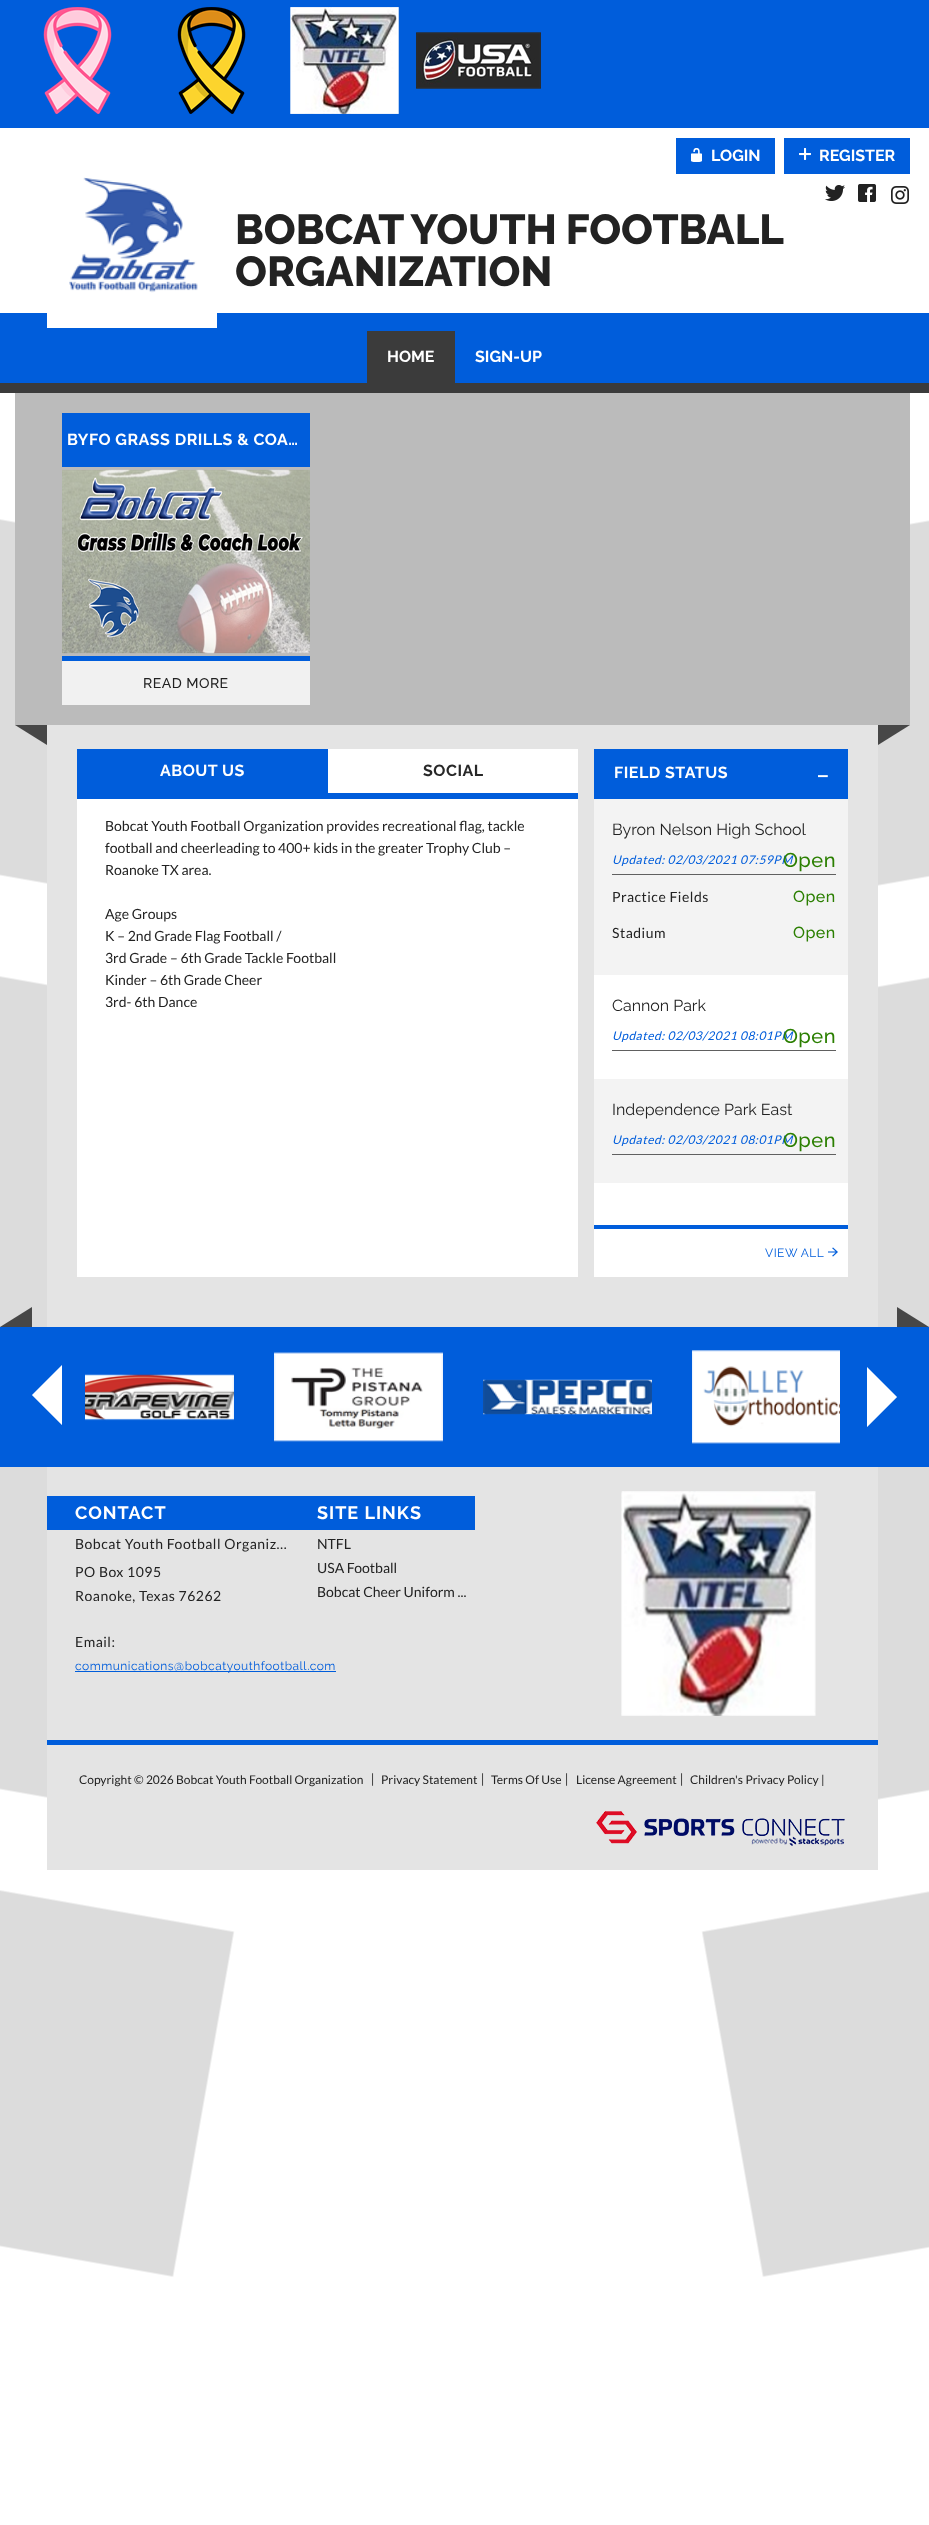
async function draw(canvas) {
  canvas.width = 929;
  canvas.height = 2525;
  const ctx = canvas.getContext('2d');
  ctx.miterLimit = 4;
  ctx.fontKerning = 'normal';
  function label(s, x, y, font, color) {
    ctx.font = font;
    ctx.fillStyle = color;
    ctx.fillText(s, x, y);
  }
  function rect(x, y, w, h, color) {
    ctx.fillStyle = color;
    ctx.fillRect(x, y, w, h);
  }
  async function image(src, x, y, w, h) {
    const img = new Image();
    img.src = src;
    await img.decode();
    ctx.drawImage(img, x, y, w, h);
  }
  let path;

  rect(0, 0, 929, 2525, '#fff');
  await image('assets/img1.png', 0, 519, 929, 1758);
  rect(0, 0, 929, 128, '#005ddb');
  await image('assets/img2.png', 43, 7, 69, 107);
  await image('assets/img3.png', 177, 7, 69, 107);
  await image('assets/img4.png', 290, 7, 109, 107);
  await image('assets/img5.png', 416, 32, 125, 57);
  rect(0, 313, 929, 70, '#005ddb');
  await image('assets/img6.png', 47, 177, 170, 151);
  rect(676, 138, 99, 36, '#005ddb');
  await image('assets/img7.png', 691, 148, 11, 14);
  label('LOGIN', 711, 161, 'bold 16px Raleway', '#fff');
  rect(784, 138, 126, 36, '#005ddb');
  await image('assets/img8.png', 799, 148, 12, 12);
  label('REGISTER', 819, 161, 'bold 16px Raleway', '#fff');
  await image('assets/img9.png', 825, 185, 20, 16);
  await image('assets/img10.png', 858, 184, 18, 18);
  await image('assets/img11.png', 891, 186, 18, 18);
  ctx.wordSpacing = '-1px';
  label('BOBCAT YOUTH FOOTBALL', 235, 244, '800 42px Raleway', '#222');
  ctx.wordSpacing = '0px';
  label('ORGANIZATION', 235, 286, '800 42px Raleway', '#222');
  rect(0, 383, 929, 10, '#3b3b3b');
  rect(367, 331, 88, 52, '#3b3b3b');
  label('HOME', 387, 362, 'bold 16px Raleway', '#fff');
  label('SIGN-UP', 475, 362, 'bold 16px Raleway', '#fff');
  rect(15, 393, 895, 332, '#bbb');
  rect(62, 413, 248, 54, '#005ddb');
  ctx.letterSpacing = '0.5px';
  label('BYFO GRASS DRILLS & COA…', 67, 445, 'bold 16px Raleway', '#fff');
  await image('assets/img12.png', 62, 469, 248, 185);
  rect(62, 661, 248, 44, '#f1f1f1');
  rect(62, 656, 248, 5, '#005ddb');
  label('READ MORE', 143, 688, '500 14px Raleway', '#222');
  rect(47, 725, 831, 602, '#e4e4e4');
  ctx.fillStyle = '#474747';
  path = new Path2D('M15 725H47V745Z');
  ctx.fill(path);
  path = new Path2D('M878 725H910L878 745Z');
  ctx.fill(path);
  rect(328, 749, 250, 44, '#fff');
  rect(77, 793, 501, 6, '#005ddb');
  rect(77, 749, 251, 44, '#005ddb');
  label('ABOUT US', 160, 776, 'bold 16px Raleway', '#fff');
  label('SOCIAL', 423, 776, 'bold 16px Raleway', '#282828');
  rect(77, 799, 501, 478, '#fff');
  ctx.letterSpacing = '0px';
  label('Bobcat Youth Football Organization provides recreational flag, tackle', 105, 831, '14px Lato', '#222');
  label('football and cheerleading to 400+ kids in the greater Trophy Club –', 105, 853, '14px Lato', '#222');
  label('Roanoke TX area.', 105, 875, '14px Lato', '#222');
  label('Age Groups', 105, 919, '14px Lato', '#222');
  label('K – 2nd Grade Flag Football /', 105, 941, '14px Lato', '#222');
  label('3rd Grade – 6th Grade Tackle Football', 105, 963, '14px Lato', '#222');
  label('Kinder – 6th Grade Cheer', 105, 985, '14px Lato', '#222');
  label('3rd- 6th Dance', 105, 1007, '14px Lato', '#222');
  rect(594, 975, 254, 302, '#fff');
  rect(594, 749, 254, 50, '#005ddb');
  ctx.letterSpacing = '0.5px';
  label('FIELD STATUS', 614, 778, 'bold 16px Raleway', '#fff');
  label('_', 818, 774, 'bold 16px Exo', '#fff');
  rect(594, 799, 254, 176, '#f3f3f3');
  ctx.letterSpacing = '0px';
  label('Byron Nelson High School', 612, 835, '16px Raleway', '#222');
  rect(612, 874, 224, 1, '#606060');
  ctx.letterSpacing = '0.5px';
  label('Updated: 02/03/2021 07:59PM', 612, 864, 'italic 12px Lato', '#005ddb');
  label('Open', 783, 867, '500 20px Raleway', '#2b7f01');
  label('Practice Fields', 612, 902, '14px Lato', '#222');
  label('Open', 793, 902, '500 16px Raleway', '#2b7f01');
  label('Stadium', 612, 938, '14px Lato', '#222');
  label('Open', 793, 938, '500 16px Raleway', '#2b7f01');
  ctx.letterSpacing = '0px';
  label('Cannon Park', 612, 1011, '16px Raleway', '#222');
  rect(612, 1050, 224, 1, '#606060');
  ctx.letterSpacing = '0.5px';
  label('Updated: 02/03/2021 08:01PM', 612, 1040, 'italic 12px Lato', '#005ddb');
  label('Open', 783, 1043, '500 20px Raleway', '#2b7f01');
  rect(594, 1079, 254, 104, '#f3f3f3');
  ctx.letterSpacing = '0px';
  label('Independence Park East', 612, 1115, '16px Raleway', '#222');
  rect(612, 1154, 224, 1, '#606060');
  ctx.letterSpacing = '0.5px';
  label('Updated: 02/03/2021 08:01PM', 612, 1144, 'italic 12px Lato', '#005ddb');
  label('Open', 783, 1147, '500 20px Raleway', '#2b7f01');
  rect(594, 1225, 254, 4, '#005ddb');
  label('VIEW ALL', 765, 1257, '12px Raleway', '#005ddb');
  await image('assets/img13.png', 828, 1247, 10, 10);
  rect(0, 1327, 929, 140, '#005ddb');
  ctx.fillStyle = '#474747';
  path = new Path2D('M32 1327H0L32 1307Z');
  ctx.fill(path);
  path = new Path2D('M929 1327H897V1307Z');
  ctx.fill(path);
  await image('assets/img14.png', 32, 1365, 30, 60);
  await image('assets/img15.png', 85, 1374, 149, 47);
  await image('assets/img16.png', 274, 1352, 169, 90);
  await image('assets/img17.png', 483, 1379, 169, 36);
  await image('assets/img18.png', 692, 1350, 148, 94);
  await image('assets/img19.png', 867, 1367, 30, 60);
  rect(47, 1467, 831, 273, '#e4e4e4');
  rect(47, 1496, 428, 34, '#005ddb');
  ctx.letterSpacing = '1px';
  label('CONTACT', 75, 1519, 'bold 18px Raleway', '#fff');
  ctx.letterSpacing = '0.5px';
  label('Bobcat Youth Football Organiz…', 75, 1549, '14px Lato', '#222');
  label('PO Box 1095', 75, 1577, '14px Lato', '#222');
  label('Roanoke, Texas 76262', 75, 1601, '14px Lato', '#222');
  label('Email:', 75, 1647, '14px Lato', '#222');
  rect(75, 1671, 261, 1, '#005ddb');
  label('communications@bobcatyouthfootball.com', 75, 1670, '12px Raleway', '#005ddb');
  ctx.letterSpacing = '1px';
  label('SITE LINKS', 317, 1519, 'bold 18px Raleway', '#fff');
  ctx.letterSpacing = '0px';
  label('NTFL', 317, 1549, '14px Lato', '#222');
  label('USA Football', 317, 1573, '14px Lato', '#222');
  label('Bobcat Cheer Uniform ...', 317, 1597, '14px Lato', '#222');
  await image('assets/img20.png', 621, 1491, 195, 225);
  rect(47, 1745, 831, 125, '#e4e4e4');
  rect(47, 1740, 831, 5, '#005ddb');
  label('Copyright © 2026 Bobcat Youth Football Organization', 79, 1784, '12px Lato', '#222');
  label('|', 371, 1784, '14px Raleway', '#222');
  label('Privacy Statement', 381, 1784, '12px Lato', '#222');
  label('|', 481, 1784, '14px Raleway', '#222');
  label('Terms Of Use', 491, 1784, '12px Lato', '#222');
  label('|', 565, 1784, '14px Raleway', '#222');
  label('License Agreement', 576, 1784, '12px Lato', '#222');
  label('|', 680, 1784, '14px Raleway', '#222');
  label('Children\'s Privacy Policy |', 690, 1784, '12px Lato', '#222');
  await image('assets/img21.png', 596, 1811, 249, 35);
}

draw(document.querySelector('canvas'));
